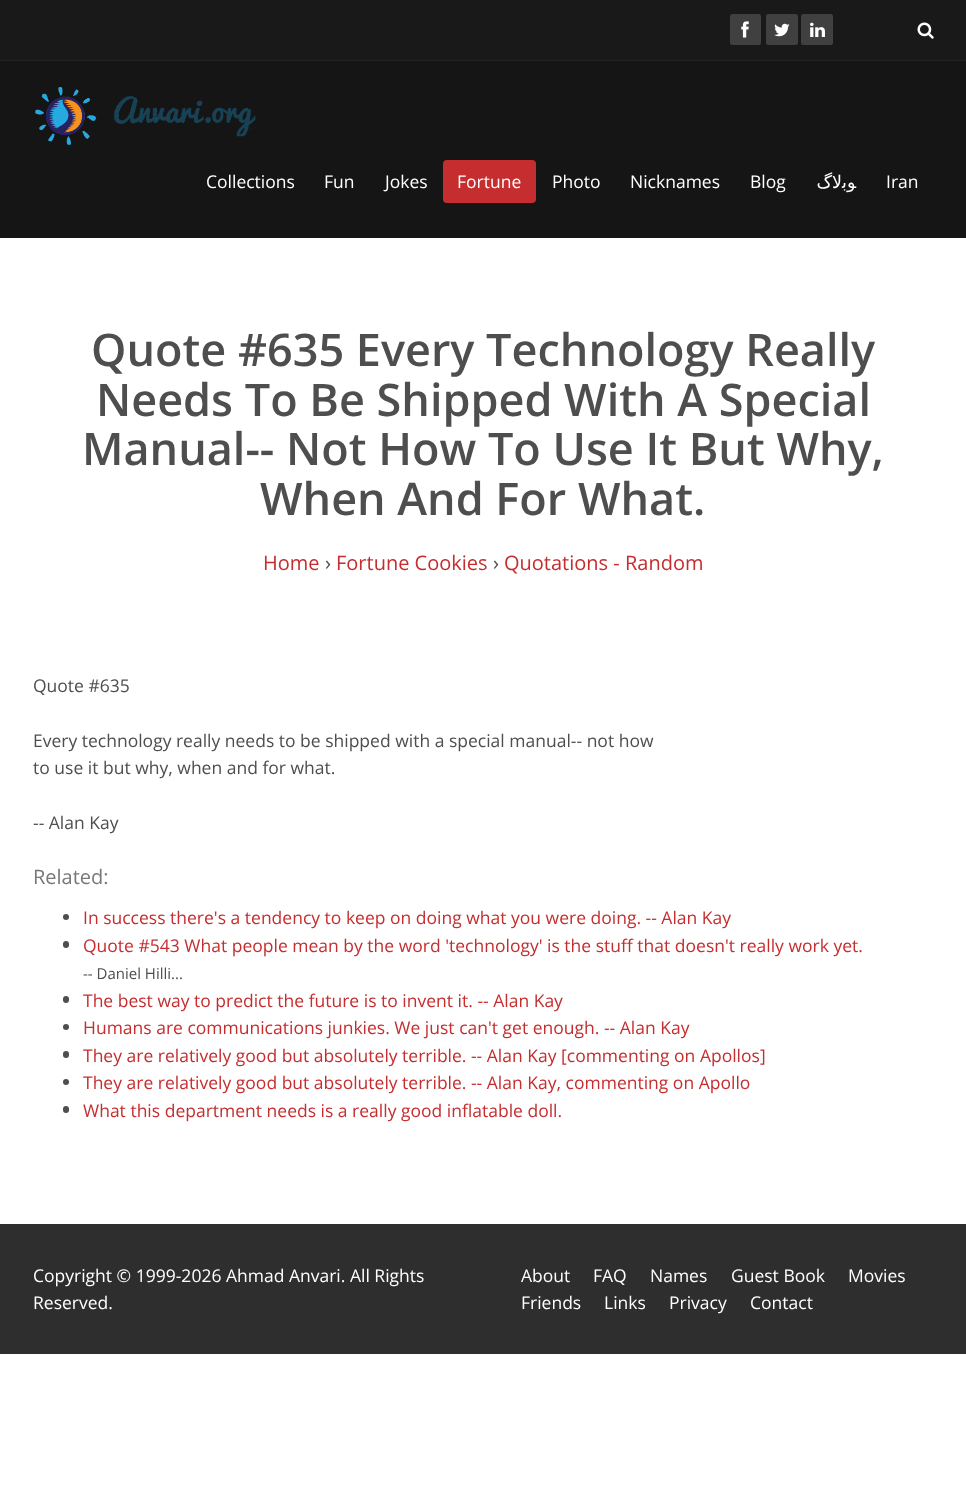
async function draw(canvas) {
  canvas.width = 966;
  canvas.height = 1491;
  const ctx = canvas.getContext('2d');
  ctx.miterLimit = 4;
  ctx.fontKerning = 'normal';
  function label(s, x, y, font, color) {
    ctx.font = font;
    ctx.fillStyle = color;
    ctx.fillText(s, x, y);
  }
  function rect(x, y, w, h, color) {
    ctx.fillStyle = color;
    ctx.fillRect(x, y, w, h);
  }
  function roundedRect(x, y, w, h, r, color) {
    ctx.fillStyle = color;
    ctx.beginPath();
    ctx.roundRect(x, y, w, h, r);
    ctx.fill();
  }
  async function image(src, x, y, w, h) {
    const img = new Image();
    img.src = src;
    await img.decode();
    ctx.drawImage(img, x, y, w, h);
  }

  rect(0, 0, 966, 1491, '#fff');
  rect(0, 0, 966, 60, '#191919');
  rect(0, 60, 966, 1, '#222');
  roundedRect(730, 14, 31, 31, 2.5, '#404040');
  await image('assets/img1.png', 741, 21, 8, 17);
  roundedRect(766, 14, 32, 31, 2.5, '#404040');
  await image('assets/img2.png', 774, 23, 16, 14);
  roundedRect(801, 14, 32, 31, 2.5, '#404040');
  await image('assets/img3.png', 810, 22, 15, 15);
  await image('assets/img4.png', 917, 22, 17, 17);
  rect(0, 61, 966, 177, '#151515');
  await image('assets/img5.png', 35, 87, 62, 58);
  await image('assets/img6.png', 114, 95, 142, 42);
  label('Collections', 206, 188, '17.5px Open Sans', '#fff');
  label('Fun', 324, 188, '17.5px Open Sans', '#fff');
  label('Jokes', 385, 188, '17.5px Open Sans', '#fff');
  roundedRect(443, 160, 93, 43, 4, '#c52d2f');
  label('Fortune', 457, 188, '17.5px Open Sans', '#fff');
  label('Photo', 552, 188, '17.5px Open Sans', '#fff');
  label('Nicknames', 630, 188, '17.5px Open Sans', '#fff');
  label('Blog', 750, 188, '17.5px Open Sans', '#fff');
  ctx.direction = 'rtl';
  label('ﻮﺑﻻگ', 856, 188, '17.5px DejaVu Sans', '#fff');
  ctx.direction = 'ltr';
  label('Iran', 886, 188, '17.5px Open Sans', '#fff');
  label('Quote #635 Every Technology Really', 91, 366, '600 45px Open Sans', '#4e4e4e');
  label('Needs To Be Shipped With A Special', 96, 416, '600 45px Open Sans', '#4e4e4e');
  label('Manual-- Not How To Use It But Why,', 82, 465, '600 45px Open Sans', '#4e4e4e');
  label('When And For What.', 260, 515, '600 45px Open Sans', '#4e4e4e');
  label('Home', 263, 570, '20px Open Sans', '#c52d2f');
  label('›', 325, 570, '20px Open Sans', '#4e4e4e');
  label('Fortune Cookies', 336, 570, '20px Open Sans', '#c52d2f');
  label('›', 493, 570, '20px Open Sans', '#4e4e4e');
  label('Quotations - Random', 504, 570, '20px Open Sans', '#c52d2f');
  label('Quote #635', 33, 692, '17.5px Open Sans', '#4e4e4e');
  label('Every technology really needs to be shipped with a special manual-- not how', 33, 747, '17.5px Open Sans', '#4e4e4e');
  label('to use it but why, when and for what.', 33, 774, '17.5px Open Sans', '#4e4e4e');
  label('-- Alan Kay', 33, 829, '17.5px Open Sans', '#4e4e4e');
  label('Related:', 33, 884, '20px Open Sans', '#787878');
  ctx.fillStyle = '#4e4e4e';
  ctx.beginPath();
  ctx.arc(66, 917, 3, 0, 2 * Math.PI);
  ctx.fill();
  label('In success there\'s a tendency to keep on doing what you were doing. -- Alan Kay', 83, 924, '17.5px Open Sans', '#c52d2f');
  roundedRect(63, 941, 6, 7, 3, '#4e4e4e');
  label('Quote #543 What people mean by the word \'technology\' is the stuff that doesn\'t really work yet.', 83, 952, '17.5px Open Sans', '#c52d2f');
  label('-- Daniel Hilli...', 83, 979, '15px Open Sans', '#4e4e4e');
  roundedRect(63, 996, 6, 7, 3, '#4e4e4e');
  label('The best way to predict the future is to invent it. -- Alan Kay', 83, 1007, '17.5px Open Sans', '#c52d2f');
  ctx.fillStyle = '#4e4e4e';
  ctx.beginPath();
  ctx.arc(66, 1027, 3, 0, 2 * Math.PI);
  ctx.fill();
  label('Humans are communications junkies. We just can\'t get enough. -- Alan Kay', 83, 1034, '17.5px Open Sans', '#c52d2f');
  roundedRect(63, 1051, 6, 7, 3, '#4e4e4e');
  label('They are relatively good but absolutely terrible. -- Alan Kay [commenting on Apollos]', 83, 1062, '17.5px Open Sans', '#c52d2f');
  ctx.fillStyle = '#4e4e4e';
  ctx.beginPath();
  ctx.arc(66, 1082, 3, 0, 2 * Math.PI);
  ctx.fill();
  label('They are relatively good but absolutely terrible. -- Alan Kay, commenting on Apollo', 83, 1089, '17.5px Open Sans', '#c52d2f');
  roundedRect(63, 1106, 6, 7, 3, '#4e4e4e');
  label('What this department needs is a really good inflatable doll.', 83, 1117, '17.5px Open Sans', '#c52d2f');
  rect(0, 1224, 966, 130, '#2e2e2e');
  label('Copyright © 1999-2026 Ahmad Anvari. All Rights', 33, 1282, '17.5px Open Sans', '#fff');
  label('Reserved.', 33, 1309, '17.5px Open Sans', '#fff');
  label('About', 521, 1282, '17.5px Open Sans', '#fff');
  label('FAQ', 593, 1282, '17.5px Open Sans', '#fff');
  label('Names', 650, 1282, '17.5px Open Sans', '#fff');
  label('Guest Book', 731, 1282, '17.5px Open Sans', '#fff');
  label('Movies', 848, 1282, '17.5px Open Sans', '#fff');
  label('Friends', 521, 1309, '17.5px Open Sans', '#fff');
  label('Links', 604, 1309, '17.5px Open Sans', '#fff');
  label('Privacy', 669, 1309, '17.5px Open Sans', '#fff');
  label('Contact', 750, 1309, '17.5px Open Sans', '#fff');
}

draw(document.querySelector('canvas'));
